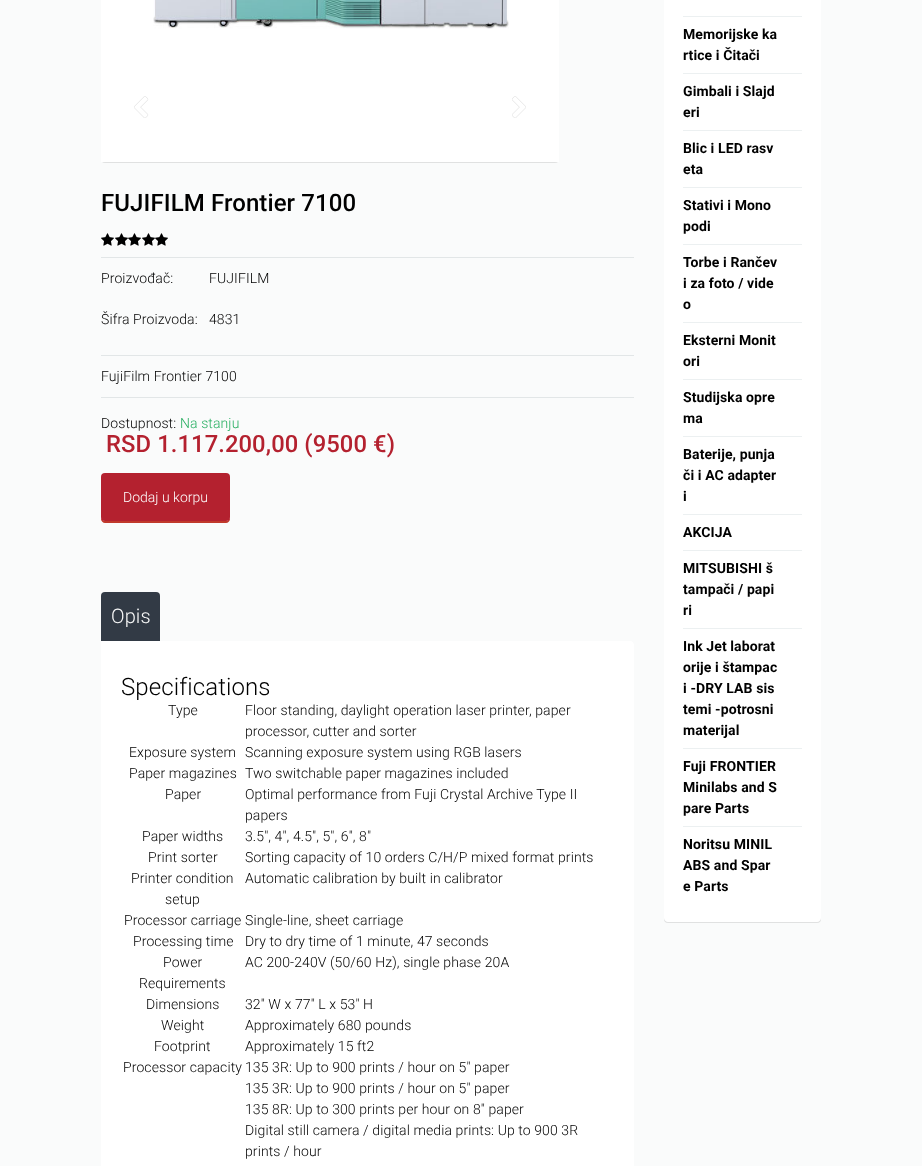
async function draw(canvas) {
  canvas.width = 922;
  canvas.height = 1166;
  const ctx = canvas.getContext('2d');
  ctx.miterLimit = 4;
  ctx.fontKerning = 'normal';
  function label(s, x, y, font, color) {
    ctx.font = font;
    ctx.fillStyle = color;
    ctx.fillText(s, x, y);
  }
  function rect(x, y, w, h, color) {
    ctx.fillStyle = color;
    ctx.fillRect(x, y, w, h);
  }
  function roundedRect(x, y, w, h, r, color) {
    ctx.fillStyle = color;
    ctx.beginPath();
    ctx.roundRect(x, y, w, h, r);
    ctx.fill();
  }
  async function image(src, x, y, w, h) {
    const img = new Image();
    img.src = src;
    await img.decode();
    ctx.drawImage(img, x, y, w, h);
  }
  let path;

  rect(0, 0, 922, 1166, '#fafbfb');
  ctx.fillStyle = '#0000001a';
  ctx.filter = 'blur(0.5px)';
  ctx.beginPath();
  ctx.roundRect(101, -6, 458, 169, 4);
  ctx.fill();
  ctx.filter = 'none';
  rect(111, 0, 438, 152, '#fff');
  path = new Path2D('M106-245H554V157H106Z');
  ctx.strokeStyle = '#fff';
  ctx.lineWidth = 10;
  ctx.stroke(path);
  await image('assets/img1.png', 153, 0, 356, 29);
  await image('assets/img2.png', 134, 96, 15, 22);
  await image('assets/img3.png', 512, 96, 14, 22);
  ctx.letterSpacing = '0.1px';
  label('FUJIFILM Frontier 7100', 101, 211, '500 24px Roboto', '#000');
  await image('assets/img4.png', 101, 233, 13, 13);
  await image('assets/img4.png', 115, 233, 13, 13);
  await image('assets/img4.png', 128, 233, 13, 13);
  await image('assets/img4.png', 142, 233, 13, 13);
  await image('assets/img4.png', 155, 233, 13, 13);
  rect(101, 257, 533, 1, '#e2e6e7');
  label('Proizvođač:', 101, 283, '300 14px Roboto', '#000');
  label('FUJIFILM', 209, 283, '300 14px Roboto', '#000');
  label('Šifra Proizvoda:', 101, 324, '300 14px Roboto', '#000');
  label('4831', 209, 324, '300 14px Roboto', '#000');
  rect(101, 355, 533, 1, '#e2e6e7');
  label('FujiFilm Frontier 7100', 101, 381, '300 14px Roboto', '#000');
  rect(101, 397, 533, 1, '#e2e6e7');
  label('Dostupnost:', 101, 428, '300 14px Roboto', '#000');
  label('Na stanju', 180, 428, '300 14px Roboto', '#27ae60');
  label('RSD 1.117.200,00 (9500 €)', 106, 452, '500 23.75px Roboto', '#b4212f');
  ctx.fillStyle = '#c0392b';
  path = new Path2D('M101 517V519C101 521 103 523 105 523H226C228 523 230 521 230 519V517C230 519 228 521 226 521H105C103 521 101 519 101 517Z');
  ctx.fill(path);
  roundedRect(101, 473, 129, 48, 4, '#b4212f');
  ctx.letterSpacing = '0px';
  label('Dodaj u korpu', 123, 502, '300 14px Roboto', '#fff');
  ctx.fillStyle = '#323a45';
  ctx.beginPath();
  ctx.roundRect(101, 592, 59, 49, [4, 4, 0, 0]);
  ctx.fill();
  ctx.letterSpacing = '0.1px';
  label('Opis', 111, 623, '300 20px Roboto', '#f9f9f9');
  ctx.fillStyle = '#fff';
  path = new Path2D('M101 641H630C632 641 634 643 634 645V1166C634 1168 632 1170 630 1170H105C103 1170 101 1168 101 1166Z');
  ctx.fill(path);
  label('Specifications', 121, 695, '300 24px Roboto', '#000');
  label('Type', 168, 715, '300 14px Roboto', '#000');
  label('Floor standing, daylight operation laser printer, paper', 245, 715, '300 14px Roboto', '#000');
  label('processor, cutter and sorter', 245, 736, '300 14px Roboto', '#000');
  label('Exposure system', 129, 757, '300 14px Roboto', '#000');
  label('Scanning exposure system using RGB lasers', 245, 757, '300 14px Roboto', '#000');
  label('Paper magazines', 129, 778, '300 14px Roboto', '#000');
  label('Two switchable paper magazines included', 245, 778, '300 14px Roboto', '#000');
  label('Paper', 165, 799, '300 14px Roboto', '#000');
  label('Optimal performance from Fuji Crystal Archive Type II', 245, 799, '300 14px Roboto', '#000');
  label('papers', 245, 820, '300 14px Roboto', '#000');
  label('Paper widths', 142, 841, '300 14px Roboto', '#000');
  label('3.5", 4", 4.5", 5", 6", 8"', 245, 841, '300 14px Roboto', '#000');
  label('Print sorter', 148, 862, '300 14px Roboto', '#000');
  label('Sorting capacity of 10 orders C/H/P mixed format prints', 245, 862, '300 14px Roboto', '#000');
  label('Printer condition', 131, 883, '300 14px Roboto', '#000');
  label('setup', 165, 904, '300 14px Roboto', '#000');
  label('Automatic calibration by built in calibrator', 245, 883, '300 14px Roboto', '#000');
  label('Processor carriage', 124, 925, '300 14px Roboto', '#000');
  label('Single-line, sheet carriage', 245, 925, '300 14px Roboto', '#000');
  label('Processing time', 133, 946, '300 14px Roboto', '#000');
  label('Dry to dry time of 1 minute, 47 seconds', 245, 946, '300 14px Roboto', '#000');
  label('Power', 163, 967, '300 14px Roboto', '#000');
  label('Requirements', 139, 988, '300 14px Roboto', '#000');
  label('AC 200-240V (50/60 Hz), single phase 20A', 245, 967, '300 14px Roboto', '#000');
  label('Dimensions', 146, 1009, '300 14px Roboto', '#000');
  label('32" W x 77" L x 53" H', 245, 1009, '300 14px Roboto', '#000');
  label('Weight', 161, 1030, '300 14px Roboto', '#000');
  label('Approximately 680 pounds', 245, 1030, '300 14px Roboto', '#000');
  label('Footprint', 154, 1051, '300 14px Roboto', '#000');
  label('Approximately 15 ft2', 245, 1051, '300 14px Roboto', '#000');
  label('Processor capacity', 123, 1072, '300 14px Roboto', '#000');
  label('135 3R: Up to 900 prints / hour on 5" paper', 245, 1072, '300 14px Roboto', '#000');
  label('135 3R: Up to 900 prints / hour on 5" paper', 245, 1093, '300 14px Roboto', '#000');
  label('135 8R: Up to 300 prints per hour on 8" paper', 245, 1114, '300 14px Roboto', '#000');
  label('Digital still camera / digital media prints: Up to 900 3R', 245, 1135, '300 14px Roboto', '#000');
  label('prints / hour', 245, 1156, '300 14px Roboto', '#000');
  ctx.fillStyle = '#0000001a';
  ctx.filter = 'blur(0.5px)';
  ctx.beginPath();
  ctx.roundRect(664, -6, 157, 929, 4);
  ctx.fill();
  ctx.filter = 'none';
  ctx.fillStyle = '#fff';
  path = new Path2D('M664-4H821V918C821 920 819 922 817 922H668C666 922 664 920 664 918Z');
  ctx.fill(path);
  rect(683, 16, 119, 1, '#ecf0f1');
  rect(683, 73, 119, 1, '#ecf0f1');
  label('Memorijske ka', 683, 39, 'bold 14px Roboto', '#000');
  label('rtice i Čitači', 683, 60, 'bold 14px Roboto', '#000');
  rect(683, 130, 119, 1, '#ecf0f1');
  label('Gimbali i Slajd', 683, 96, 'bold 14px Roboto', '#000');
  label('eri', 683, 117, 'bold 14px Roboto', '#000');
  rect(683, 187, 119, 1, '#ecf0f1');
  label('Blic i LED rasv', 683, 153, 'bold 14px Roboto', '#000');
  label('eta', 683, 174, 'bold 14px Roboto', '#000');
  rect(683, 244, 119, 1, '#ecf0f1');
  label('Stativi i Mono', 683, 210, 'bold 14px Roboto', '#000');
  label('podi', 683, 231, 'bold 14px Roboto', '#000');
  rect(683, 322, 119, 1, '#ecf0f1');
  label('Torbe i Rančev', 683, 267, 'bold 14px Roboto', '#000');
  label('i za foto / vide', 683, 288, 'bold 14px Roboto', '#000');
  label('o', 683, 309, 'bold 14px Roboto', '#000');
  rect(683, 379, 119, 1, '#ecf0f1');
  label('Eksterni Monit', 683, 345, 'bold 14px Roboto', '#000');
  label('ori', 683, 366, 'bold 14px Roboto', '#000');
  rect(683, 436, 119, 1, '#ecf0f1');
  label('Studijska opre', 683, 402, 'bold 14px Roboto', '#000');
  label('ma', 683, 423, 'bold 14px Roboto', '#000');
  rect(683, 514, 119, 1, '#ecf0f1');
  label('Baterije, punja', 683, 459, 'bold 14px Roboto', '#000');
  label('či i AC adapter', 683, 480, 'bold 14px Roboto', '#000');
  label('i', 683, 501, 'bold 14px Roboto', '#000');
  rect(683, 550, 119, 1, '#ecf0f1');
  label('AKCIJA', 683, 537, 'bold 14px Roboto', '#000');
  rect(683, 628, 119, 1, '#ecf0f1');
  label('MITSUBISHI š', 683, 573, 'bold 14px Roboto', '#000');
  label('tampači / papi', 683, 594, 'bold 14px Roboto', '#000');
  label('ri', 683, 615, 'bold 14px Roboto', '#000');
  rect(683, 748, 119, 1, '#ecf0f1');
  label('Ink Jet laborat', 683, 651, 'bold 14px Roboto', '#000');
  label('orije i štampac', 683, 672, 'bold 14px Roboto', '#000');
  label('i -DRY LAB sis', 683, 693, 'bold 14px Roboto', '#000');
  label('temi -potrosni', 683, 714, 'bold 14px Roboto', '#000');
  label('materijal', 683, 735, 'bold 14px Roboto', '#000');
  rect(683, 826, 119, 1, '#ecf0f1');
  label('Fuji FRONTIER', 683, 771, 'bold 14px Roboto', '#000');
  label('Minilabs and S', 683, 792, 'bold 14px Roboto', '#000');
  label('pare Parts', 683, 813, 'bold 14px Roboto', '#000');
  label('Noritsu MINIL', 683, 849, 'bold 14px Roboto', '#000');
  label('ABS and Spar', 683, 870, 'bold 14px Roboto', '#000');
  label('e Parts', 683, 891, 'bold 14px Roboto', '#000');
}

draw(document.querySelector('canvas'));
